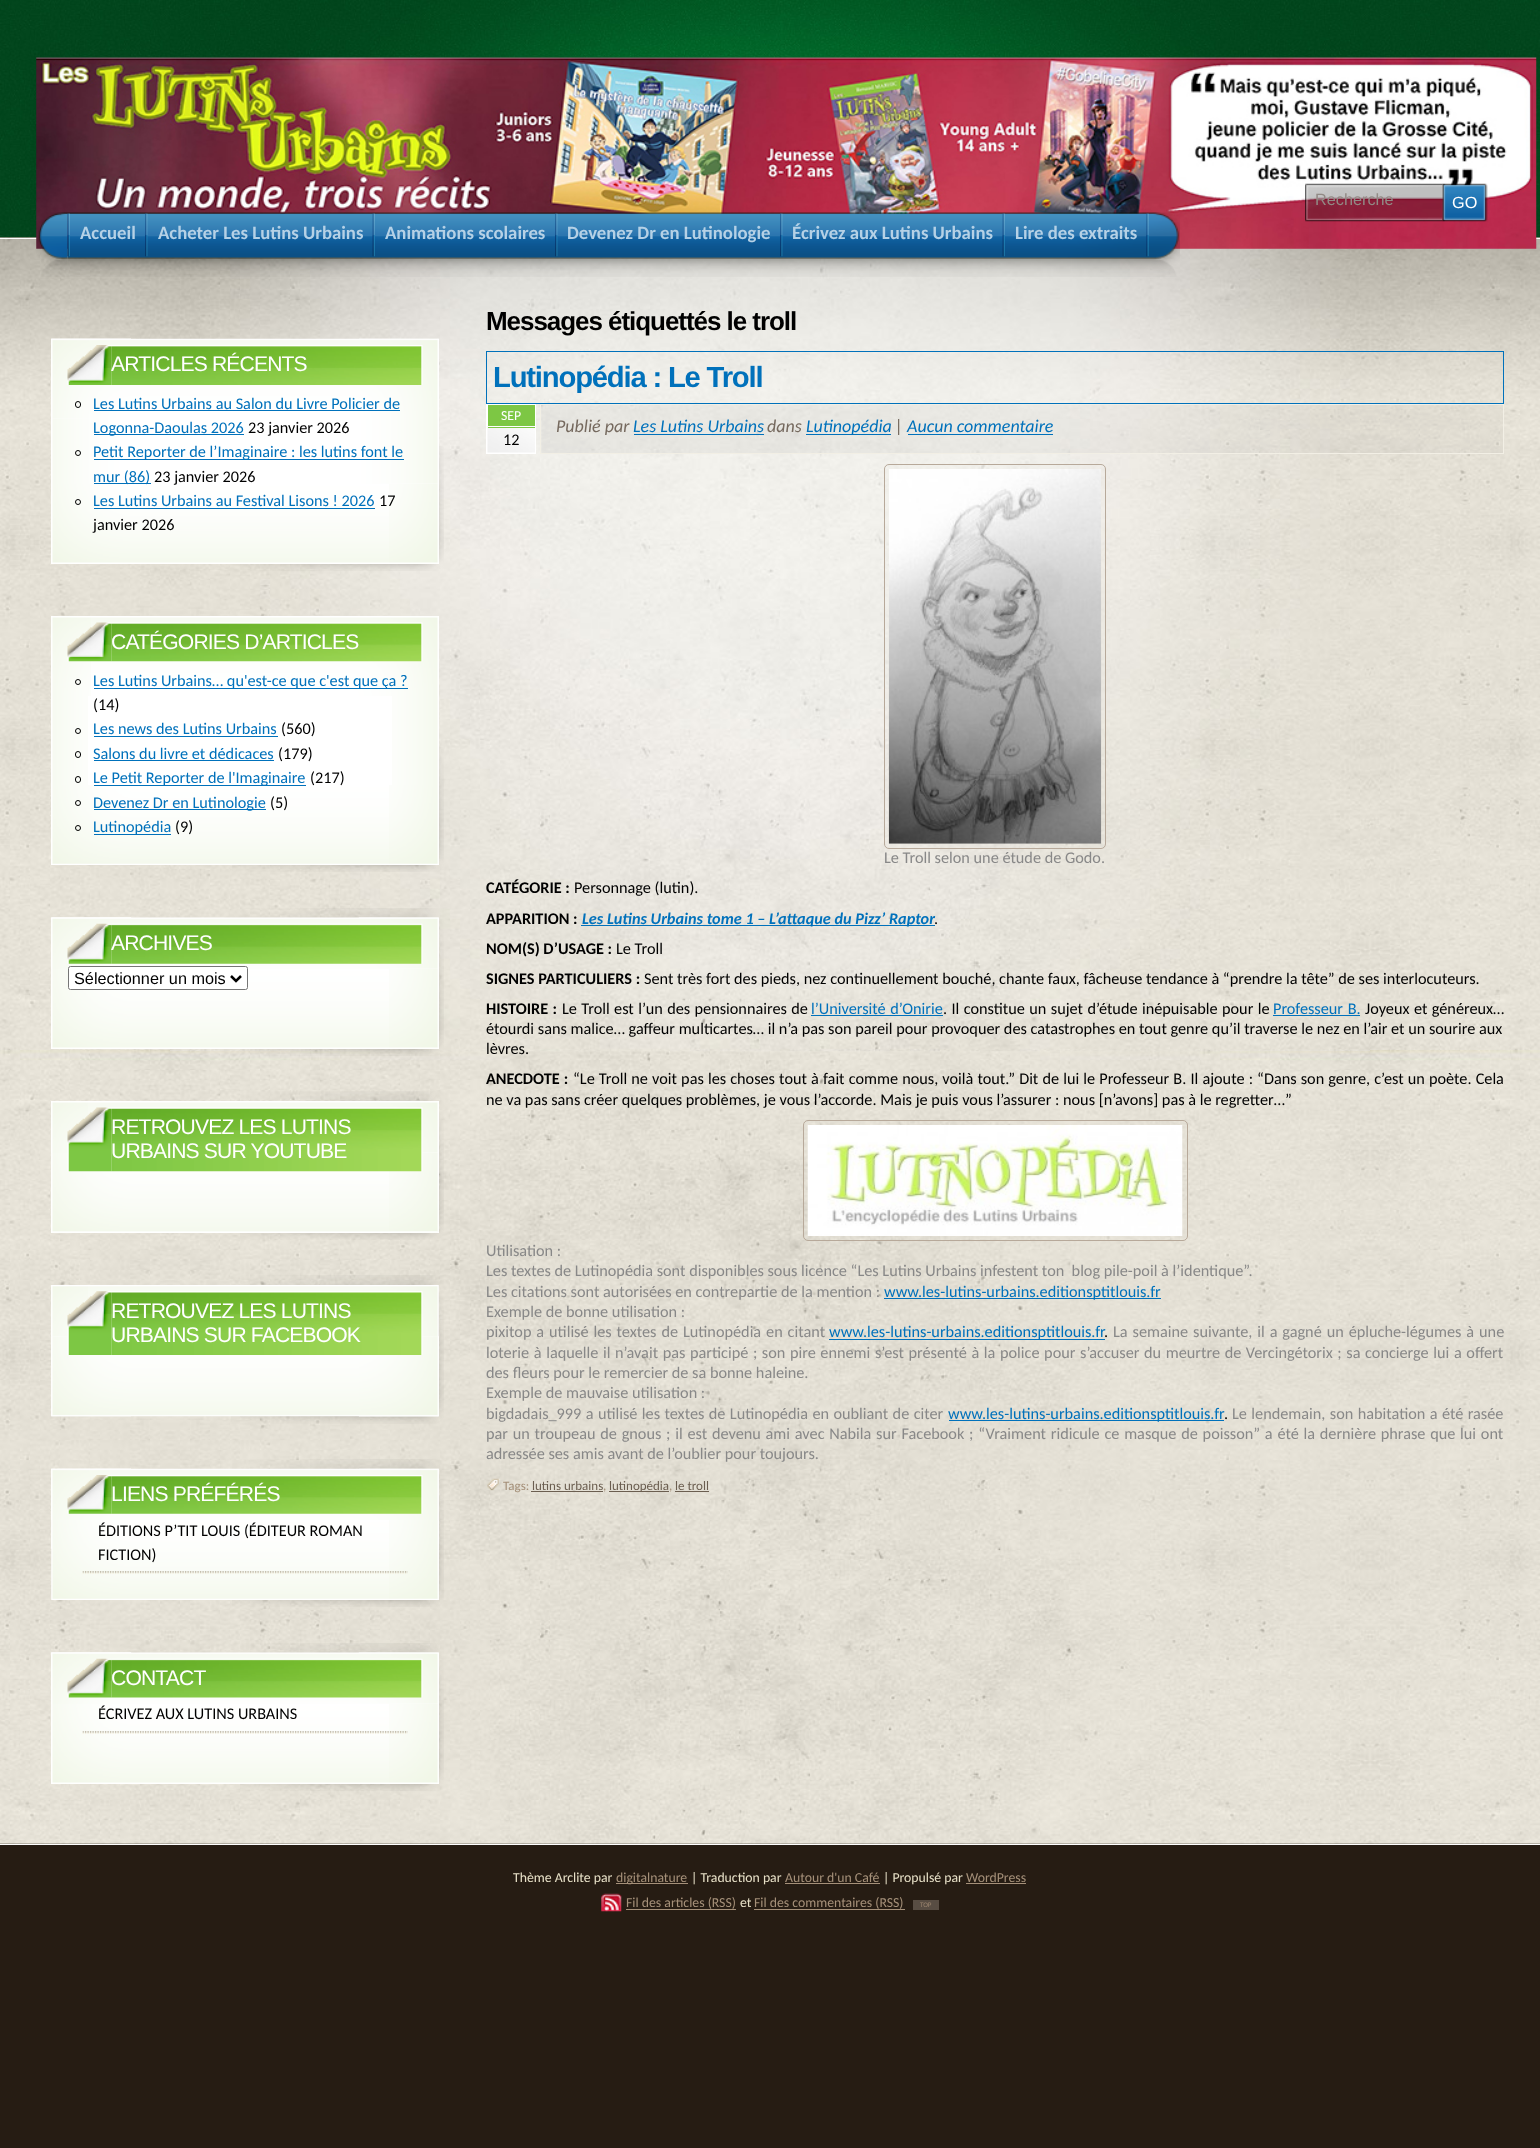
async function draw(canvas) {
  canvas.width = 1540;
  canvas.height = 2148;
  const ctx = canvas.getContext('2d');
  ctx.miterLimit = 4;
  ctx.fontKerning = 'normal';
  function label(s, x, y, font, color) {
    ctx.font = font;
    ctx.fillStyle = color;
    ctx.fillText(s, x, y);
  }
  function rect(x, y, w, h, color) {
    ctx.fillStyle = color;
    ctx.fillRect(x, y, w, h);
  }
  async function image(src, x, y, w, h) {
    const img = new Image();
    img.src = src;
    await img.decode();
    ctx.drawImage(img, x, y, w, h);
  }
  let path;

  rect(0, 0, 1540, 2148, '#261c13');
  await image('assets/img1.png', 0, 0, 1540, 238);
  await image('assets/img2.png', 170, 0, 1200, 58);
  await image('assets/img15.png', 0, 237, 1540, 1607);
  await image('assets/img16.png', 0, 239, 1540, 250);
  rect(0, 238, 1540, 1, '#fff');
  await image('assets/img17.png', 170, 248, 1200, 804);
  await image('assets/img3.png', 36, 57, 1501, 192);
  await image('assets/img4.png', 1305, 183, 138, 39);
  await image('assets/img5.png', 1442, 183, 46, 39);
  label('Recherche', 1315, 205, '16.25px Liberation Sans', '#928a85');
  label('GO', 1452, 208, '16.25px Liberation Sans', '#fff');
  await image('assets/img6.png', 36, 212, 32, 65);
  await image('assets/img7.png', 67, 212, 1113, 65);
  await image('assets/img8.png', 1146, 213, 3, 44);
  await image('assets/img9.png', 67, 213, 3, 44);
  label('Accueil', 80, 239, 'bold 18.75px Carlito', '#b5d1e6');
  await image('assets/img10.png', 145, 213, 3, 44);
  label('Acheter Les Lutins Urbains', 158, 239, 'bold 18.75px Carlito', '#b5d1e6');
  await image('assets/img11.png', 372, 213, 3, 44);
  label('Animations scolaires', 385, 239, 'bold 18.75px Carlito', '#b5d1e6');
  await image('assets/img12.png', 555, 213, 3, 44);
  label('Devenez Dr en Lutinologie', 567, 239, 'bold 18.75px Carlito', '#b5d1e6');
  await image('assets/img13.png', 780, 213, 3, 44);
  label('Écrivez aux Lutins Urbains', 792, 239, 'bold 18.75px Carlito', '#b5d1e6');
  await image('assets/img14.png', 1002, 213, 3, 44);
  label('Lire des extraits', 1015, 239, 'bold 18.75px Carlito', '#b5d1e6');
  await image('assets/img18.png', 240, 446, 204, 125);
  rect(51, 339, 388, 225, '#fff');
  await image('assets/img19.png', 51, 338, 80, 226);
  await image('assets/img20.png', 359, 338, 80, 226);
  await image('assets/img21.png', 51, 338, 388, 81);
  await image('assets/img22.png', 52, 483, 387, 81);
  await image('assets/img23.png', 51, 338, 80, 81);
  await image('assets/img24.png', 389, 484, 50, 79);
  await image('assets/img25.png', 67, 345, 45, 40);
  await image('assets/img26.png', 111, 345, 312, 40);
  ctx.letterSpacing = '-0.85px';
  label('ARTICLES RÉCENTS', 111, 371, '21.1px Liberation Sans', '#fff');
  ctx.beginPath();
  ctx.roundRect(75.5, 401.5, 5, 6, 2.5);
  ctx.strokeStyle = '#000';
  ctx.stroke();
  ctx.letterSpacing = '0px';
  label('Les Lutins Urbains au Salon du Livre Policier de', 93, 409, '16.25px Carlito', '#0071bb');
  rect(94, 410, 306, 1, '#0071bb');
  rect(94, 434, 150, 1, '#0071bb');
  label('Logonna-Daoulas 2026', 93, 433, '16.25px Carlito', '#0071bb');
  label('23 janvier 2026', 248, 433, '16.25px Carlito', '#000');
  ctx.beginPath();
  ctx.arc(78, 453, 2.5, 0, 2 * Math.PI);
  ctx.stroke();
  rect(94, 459, 310, 1, '#0071bb');
  label('Petit Reporter de l’Imaginaire : les lutins font le', 93, 457, '16.25px Carlito', '#0071bb');
  rect(94, 483, 57, 1, '#0071bb');
  label('mur (86)', 93, 482, '16.25px Carlito', '#0071bb');
  label('23 janvier 2026', 154, 482, '16.25px Carlito', '#000');
  ctx.beginPath();
  ctx.arc(78, 502, 2.5, 0, 2 * Math.PI);
  ctx.stroke();
  label('Les Lutins Urbains au Festival Lisons ! 2026', 93, 506, '16.25px Carlito', '#0071bb');
  rect(94, 508, 281, 1, '#0071bb');
  label('17', 379, 506, '16.25px Carlito', '#000');
  label('janvier 2026', 93, 530, '16.25px Carlito', '#000');
  await image('assets/img27.png', 232, 747, 212, 125);
  rect(51, 616, 388, 249, '#fff');
  await image('assets/img28.png', 52, 616, 36, 169);
  await image('assets/img29.png', 392, 616, 46, 169);
  await image('assets/img30.png', 51, 616, 387, 80);
  await image('assets/img31.png', 52, 785, 387, 80);
  await image('assets/img32.png', 51, 617, 40, 79);
  await image('assets/img33.png', 389, 785, 50, 79);
  await image('assets/img34.png', 67, 622, 45, 40);
  await image('assets/img35.png', 111, 622, 312, 40);
  ctx.letterSpacing = '-0.85px';
  label('CATÉGORIES D’ARTICLES', 111, 649, '21.1px Liberation Sans', '#fff');
  ctx.beginPath();
  ctx.arc(78, 682, 2.5, 0, 2 * Math.PI);
  ctx.stroke();
  rect(94, 688, 314, 1, '#0071bb');
  ctx.letterSpacing = '0px';
  label('Les Lutins Urbains… qu\'est-ce que c\'est que ça ?', 93, 686, '16.25px Carlito', '#0071bb');
  label('(14)', 93, 710, '16.25px Carlito', '#000');
  ctx.beginPath();
  ctx.arc(78, 731, 2.5, 0, 2 * Math.PI);
  ctx.stroke();
  label('Les news des Lutins Urbains', 93, 734, '16.25px Carlito', '#0071bb');
  rect(94, 736, 184, 1, '#0071bb');
  label('(560)', 281, 734, '16.25px Carlito', '#000');
  ctx.beginPath();
  ctx.roundRect(75.5, 751.5, 5, 6, 2.5);
  ctx.stroke();
  label('Salons du livre et dédicaces', 93, 759, '16.25px Carlito', '#0071bb');
  rect(94, 760, 180, 1, '#0071bb');
  label('(179)', 278, 759, '16.25px Carlito', '#000');
  ctx.beginPath();
  ctx.roundRect(75.5, 776.5, 5, 6, 2.5);
  ctx.stroke();
  rect(94, 785, 212, 1, '#0071bb');
  label('Le Petit Reporter de l\'Imaginaire', 93, 783, '16.25px Carlito', '#0071bb');
  label('(217)', 310, 783, '16.25px Carlito', '#000');
  ctx.beginPath();
  ctx.arc(78, 803, 2.5, 0, 2 * Math.PI);
  ctx.stroke();
  rect(94, 809, 172, 1, '#0071bb');
  label('Devenez Dr en Lutinologie', 93, 808, '16.25px Carlito', '#0071bb');
  label('(5)', 270, 808, '16.25px Carlito', '#000');
  ctx.beginPath();
  ctx.arc(78, 828, 2.5, 0, 2 * Math.PI);
  ctx.stroke();
  rect(94, 834, 77, 1, '#0071bb');
  label('Lutinopédia', 93, 832, '16.25px Carlito', '#0071bb');
  label('(9)', 175, 832, '16.25px Carlito', '#000');
  await image('assets/img36.png', 240, 908, 204, 148);
  rect(51, 918, 388, 131, '#fff');
  await image('assets/img37.png', 51, 917, 81, 132);
  await image('assets/img38.png', 358, 917, 81, 132);
  await image('assets/img39.png', 51, 917, 388, 81);
  await image('assets/img40.png', 52, 968, 387, 81);
  await image('assets/img41.png', 51, 917, 80, 52);
  await image('assets/img24.png', 389, 969, 50, 79);
  await image('assets/img42.png', 67, 923, 45, 41);
  await image('assets/img43.png', 111, 923, 312, 41);
  ctx.letterSpacing = '-0.85px';
  label('ARCHIVES', 111, 950, '21.1px Liberation Sans', '#fff');
  ctx.beginPath();
  ctx.roundRect(68.5, 966.5, 179, 23, 2);
  ctx.fill();
  ctx.strokeStyle = '#767676';
  ctx.stroke();
  path = new Path2D('M231 976L236 981L241 976');
  ctx.strokeStyle = '#000';
  ctx.lineWidth = 2.5;
  ctx.stroke(path);
  ctx.letterSpacing = '0px';
  label('Sélectionner un mois', 74, 984, '16.25px Liberation Sans', '#000');
  await image('assets/img44.png', 240, 1091, 204, 149);
  rect(51, 1101, 388, 132, '#fff');
  await image('assets/img45.png', 52, 1101, 36, 132);
  await image('assets/img46.png', 392, 1101, 46, 132);
  await image('assets/img30.png', 51, 1101, 387, 80);
  await image('assets/img47.png', 52, 1152, 387, 81);
  await image('assets/img48.png', 51, 1102, 37, 51);
  await image('assets/img49.png', 389, 1152, 50, 79);
  await image('assets/img50.png', 67, 1107, 45, 65);
  await image('assets/img51.png', 111, 1107, 312, 65);
  ctx.letterSpacing = '-0.85px';
  label('RETROUVEZ LES LUTINS', 111, 1134, '21.1px Liberation Sans', '#fff');
  label('URBAINS SUR YOUTUBE', 111, 1158, '21.1px Liberation Sans', '#fff');
  await image('assets/img52.png', 231, 1275, 213, 149);
  await image('assets/img53.png', 51, 1285, 80, 132);
  await image('assets/img54.png', 358, 1285, 81, 132);
  await image('assets/img55.png', 51, 1285, 387, 80);
  await image('assets/img56.png', 51, 1336, 388, 81);
  await image('assets/img57.png', 51, 1286, 37, 50);
  await image('assets/img58.png', 359, 1336, 80, 81);
  await image('assets/img59.png', 67, 1291, 45, 64);
  await image('assets/img60.png', 111, 1291, 312, 64);
  label('RETROUVEZ LES LUTINS', 111, 1318, '21.1px Liberation Sans', '#fff');
  label('URBAINS SUR FACEBOOK', 111, 1342, '21.1px Liberation Sans', '#fff');
  await image('assets/img61.png', 232, 1459, 212, 148);
  await image('assets/img62.png', 51, 1468, 80, 132);
  await image('assets/img63.png', 359, 1468, 80, 132);
  await image('assets/img64.png', 51, 1468, 388, 81);
  await image('assets/img31.png', 52, 1520, 387, 80);
  await image('assets/img65.png', 51, 1468, 80, 52);
  await image('assets/img33.png', 389, 1520, 50, 79);
  await image('assets/img66.png', 67, 1475, 45, 39);
  await image('assets/img67.png', 111, 1475, 312, 39);
  label('LIENS PRÉFÉRÉS', 111, 1501, '21.1px Liberation Sans', '#fff');
  await image('assets/img68.png', 82, 1571, 326, 3);
  ctx.letterSpacing = '0px';
  label('ÉDITIONS P’TIT LOUIS (ÉDITEUR ROMAN', 98, 1536, '16.25px Carlito', '#000');
  label('FICTION)', 98, 1560, '16.25px Carlito', '#000');
  await image('assets/img69.png', 240, 1643, 204, 148);
  rect(51, 1653, 388, 131, '#fff');
  await image('assets/img70.png', 51, 1652, 81, 132);
  await image('assets/img71.png', 358, 1652, 81, 132);
  await image('assets/img72.png', 51, 1652, 388, 81);
  await image('assets/img40.png', 52, 1703, 387, 81);
  await image('assets/img73.png', 51, 1652, 80, 52);
  await image('assets/img24.png', 389, 1704, 50, 79);
  await image('assets/img74.png', 67, 1658, 45, 40);
  await image('assets/img75.png', 111, 1658, 312, 40);
  ctx.letterSpacing = '-0.85px';
  label('CONTACT', 111, 1685, '21.1px Liberation Sans', '#fff');
  await image('assets/img76.png', 82, 1731, 326, 3);
  ctx.letterSpacing = '0px';
  label('ÉCRIVEZ AUX LUTINS URBAINS', 98, 1719, '16.25px Carlito', '#000');
  ctx.letterSpacing = '-1.05px';
  label('Messages étiquettés le troll', 486, 330, 'bold 26px Liberation Sans', '#000');
  ctx.strokeStyle = '#0071bb';
  ctx.lineWidth = 1;
  ctx.strokeRect(486.5, 351.5, 1017, 52);
  ctx.letterSpacing = '-1.2px';
  label('Lutinopédia : Le Troll', 493, 387, 'bold 29.25px Liberation Sans', '#0071bb');
  rect(486, 404, 50, 50, '#fff');
  await image('assets/img77.png', 487, 426, 48, 27);
  rect(488, 405, 47, 23, '#7dc744');
  rect(488, 426, 47, 1, '#fff');
  ctx.letterSpacing = '0px';
  label('SEP', 501, 420, '13.75px Carlito', '#fff');
  label('12', 503, 445, '16.25px Carlito', '#000');
  await image('assets/img78.png', 541, 405, 962, 48);
  ctx.strokeStyle = '#f2efe5';
  ctx.strokeRect(540.5, 404.5, 963, 49);
  label('Publié par', 556, 432, 'italic 18px Carlito', '#75695e');
  label('Les Lutins Urbains', 633, 432, 'italic 18px Carlito', '#0071bb');
  rect(634, 434, 130, 1, '#0071bb');
  label('dans', 767, 432, 'italic 18px Carlito', '#75695e');
  rect(806, 434, 85, 1, '#0071bb');
  label('Lutinopédia', 806, 432, 'italic 18px Carlito', '#0071bb');
  label('|', 895, 432, 'italic 18px Carlito', '#75695e');
  label('Aucun commentaire', 907, 432, 'italic 18px Carlito', '#0071bb');
  rect(908, 434, 145, 1, '#0071bb');
  ctx.beginPath();
  ctx.roundRect(884.5, 464.5, 221, 384, 4.5);
  ctx.strokeStyle = '#b7a99a';
  ctx.stroke();
  await image('assets/img79.png', 888, 469, 214, 375);
  label('Le Troll selon une étude de Godo.', 884, 863, '16.25px Carlito', '#888');
  label('CATÉGORIE :', 486, 893, 'bold 16.25px Carlito', '#000');
  label('Personnage (lutin).', 574, 893, '16.25px Carlito', '#000');
  label('APPARITION :', 486, 924, 'bold 16.25px Carlito', '#000');
  rect(581, 925, 354, 1, '#0071bb');
  label('Les Lutins Urbains tome 1 – L’attaque du Pizz’ Raptor', 582, 924, 'italic bold 16.25px Carlito', '#0071bb');
  label('.', 934, 924, '16.25px Carlito', '#000');
  label('NOM(S) D’USAGE :', 486, 954, 'bold 16.25px Carlito', '#000');
  label('Le Troll', 616, 954, '16.25px Carlito', '#000');
  label('SIGNES PARTICULIERS :', 486, 984, 'bold 16.25px Carlito', '#000');
  label('Sent très fort des pieds, nez continuellement bouché, chante faux, fâcheuse tendance à “prendre la tête” de ses interlocuteurs.', 644, 984, '16.25px Carlito', '#000');
  ctx.wordSpacing = '0.75px';
  label('HISTOIRE :', 486, 1014, 'bold 16.25px Carlito', '#000');
  label('Le Troll est l’un des pensionnaires de', 562, 1014, '16.25px Carlito', '#000');
  ctx.wordSpacing = '1px';
  label('l’Université d’Onirie', 811, 1014, '16.25px Carlito', '#0071bb');
  rect(811, 1015, 132, 1, '#0071bb');
  ctx.wordSpacing = '0.75px';
  label('. Il constitue un sujet d’étude inépuisable pour le', 943, 1014, '16.25px Carlito', '#000');
  ctx.wordSpacing = '1px';
  label('Professeur B.', 1273, 1014, '16.25px Carlito', '#0071bb');
  rect(1273, 1015, 87, 1, '#0071bb');
  ctx.wordSpacing = '0.75px';
  label('Joyeux et généreux…', 1365, 1014, '16.25px Carlito', '#000');
  ctx.wordSpacing = '0px';
  label('étourdi sans malice… gaffeur multicartes… il n’a pas son pareil pour provoquer des catastrophes en tout genre qu’il traverse le nez en l’air et un sourire aux', 486, 1034, '16.25px Carlito', '#000');
  label('lèvres.', 486, 1054, '16.25px Carlito', '#000');
  ctx.wordSpacing = '0.45px';
  label('ANECDOTE :', 486, 1084, 'bold 16.25px Carlito', '#000');
  label('“Le Troll ne voit pas les choses tout à fait comme nous, voilà tout.” Dit de lui le Professeur B. Il ajoute : “Dans son genre, c’est un poète. Cela', 573, 1084, '16.25px Carlito', '#000');
  ctx.wordSpacing = '0px';
  label('ne va pas sans créer quelques problèmes, je vous l’accorde. Mais je puis vous l’assurer : nous [n’avons] pas à le regretter…”', 486, 1105, '16.25px Carlito', '#000');
  ctx.beginPath();
  ctx.roundRect(803.5, 1120.5, 384, 120, 4.5);
  ctx.stroke();
  await image('assets/img80.png', 807, 1125, 376, 111);
  label('Utilisation :', 486, 1256, '16.25px Carlito', '#888');
  label('Les textes de Lutinopédia sont disponibles sous licence “Les Lutins Urbains infestent ton  blog pile-poil à l’identique”.', 486, 1276, '16.25px Carlito', '#888');
  label('Les citations sont autorisées en contrepartie de la mention :', 486, 1297, '16.25px Carlito', '#888');
  rect(884, 1298, 277, 1, '#0071bb');
  label('www.les-lutins-urbains.editionsptitlouis.fr', 884, 1297, '16.25px Carlito', '#0071bb');
  label('Exemple de bonne utilisation :', 486, 1317, '16.25px Carlito', '#888');
  ctx.wordSpacing = '1.25px';
  label('pixitop a utilisé les textes de Lutinopédia en citant', 486, 1337, '16.25px Carlito', '#888');
  rect(829, 1339, 276, 1, '#0071bb');
  ctx.wordSpacing = '0px';
  label('www.les-lutins-urbains.editionsptitlouis.fr', 829, 1337, '16.25px Carlito', '#0071bb');
  label('.', 1104, 1337, '16.25px Carlito', '#000');
  ctx.wordSpacing = '1.25px';
  label('La semaine suivante, il a gagné un épluche-légumes à une', 1113, 1337, '16.25px Carlito', '#888');
  ctx.wordSpacing = '0.95px';
  label('loterie à laquelle il n’avait pas participé ; son pire ennemi s’est présenté à la police pour s’accuser du meurtre de Vercingétorix ; sa concierge lui a offert', 486, 1358, '16.25px Carlito', '#888');
  ctx.wordSpacing = '0px';
  label('des fleurs pour le remercier de sa bonne haleine.', 486, 1378, '16.25px Carlito', '#888');
  label('Exemple de mauvaise utilisation :', 486, 1398, '16.25px Carlito', '#888');
  ctx.wordSpacing = '0.75px';
  label('bigdadais_999 a utilisé les textes de Lutinopédia en oubliant de citer', 486, 1419, '16.25px Carlito', '#888');
  rect(949, 1420, 275, 1, '#0071bb');
  ctx.wordSpacing = '0px';
  label('www.les-lutins-urbains.editionsptitlouis.fr', 948, 1419, '16.25px Carlito', '#0071bb');
  label('.', 1224, 1419, '16.25px Carlito', '#000');
  ctx.wordSpacing = '0.75px';
  label('Le lendemain, son habitation a été rasée', 1232, 1419, '16.25px Carlito', '#888');
  ctx.wordSpacing = '1.1px';
  label('par un troupeau de gnous ; il est devenu ami avec Nabila sur Facebook ; “Vraiment ridicule ce masque de poisson” a été la dernière phrase que lui ont', 486, 1439, '16.25px Carlito', '#888');
  ctx.wordSpacing = '0px';
  label('adressée ses amis avant de l’oublier pour toujours.', 486, 1459, '16.25px Carlito', '#888');
  await image('assets/img81.png', 487, 1478, 12, 13);
  label('Tags:', 503, 1490, '13px Carlito', '#a59079');
  label('lutins urbains', 532, 1490, '13px Carlito', '#6b5e50');
  rect(531, 1491, 72, 1, '#6b5e50');
  label(',', 603, 1490, '13px Carlito', '#a59079');
  rect(609, 1491, 60, 1, '#6b5e50');
  label('lutinopédia', 609, 1490, '13px Carlito', '#6b5e50');
  label(',', 669, 1490, '13px Carlito', '#a59079');
  label('le troll', 675, 1490, '13px Carlito', '#6b5e50');
  rect(675, 1491, 34, 1, '#6b5e50');
  rect(0, 1844, 1540, 1, '#fff');
  label('Thème Arclite par', 513, 1882, '13.75px Carlito', '#e7e0c7');
  rect(616, 1883, 72, 1, '#a59079');
  label('digitalnature', 616, 1882, '13.75px Carlito', '#a59079');
  label('| Traduction par', 691, 1882, '13.75px Carlito', '#e7e0c7');
  label('Autour d\'un Café', 785, 1882, '13.75px Carlito', '#a59079');
  rect(785, 1883, 95, 1, '#a59079');
  label('| Propulsé par', 883, 1882, '13.75px Carlito', '#e7e0c7');
  label('WordPress', 966, 1882, '13.75px Carlito', '#a59079');
  rect(966, 1883, 60, 1, '#a59079');
  await image('assets/img82.png', 601, 1893, 21, 19);
  label('Fil des articles (RSS)', 626, 1907, '13.75px Carlito', '#a59079');
  rect(626, 1909, 110, 1, '#a59079');
  label('et', 740, 1907, '13.75px Carlito', '#e7e0c7');
  label('Fil des commentaires (RSS)', 754, 1907, '13.75px Carlito', '#a59079');
  rect(754, 1909, 151, 1, '#a59079');
  rect(913, 1900, 26, 10, '#584d43');
  label('TOP', 920, 1907, '7px Carlito', '#9b856f');
}

draw(document.querySelector('canvas'));
